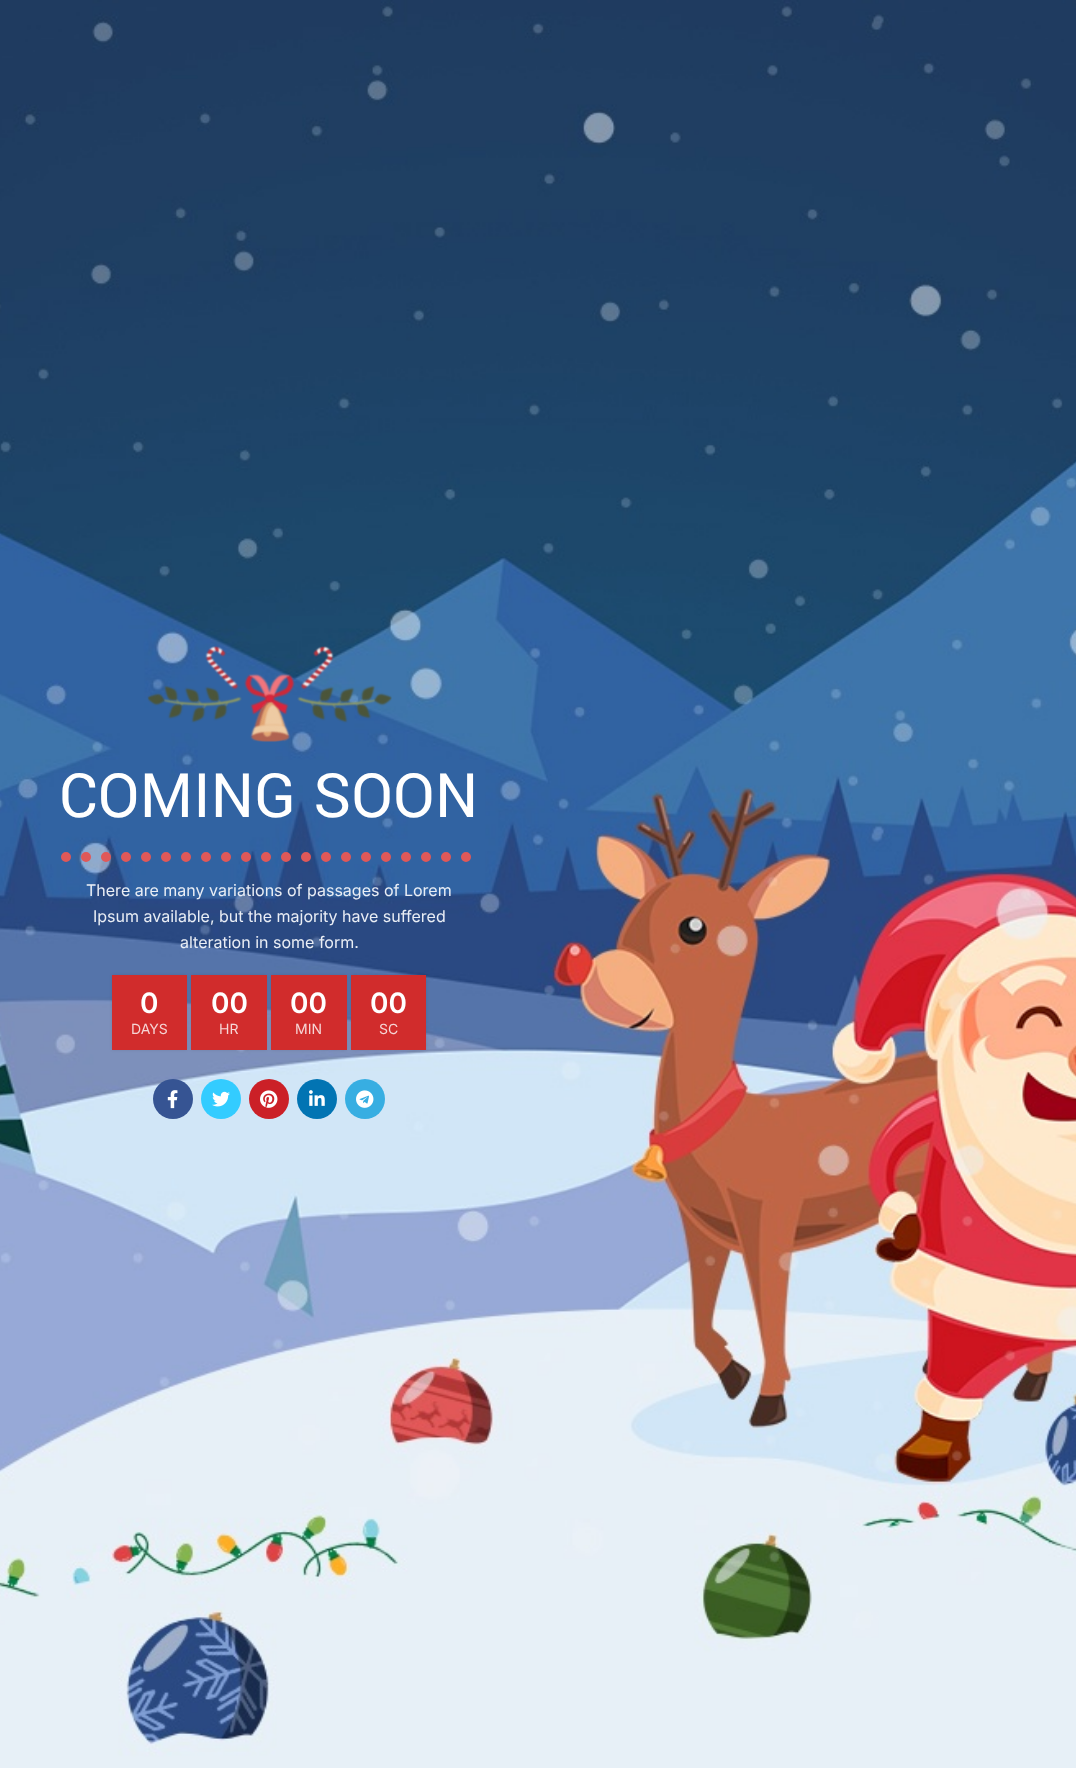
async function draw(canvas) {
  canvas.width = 1076;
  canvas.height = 1768;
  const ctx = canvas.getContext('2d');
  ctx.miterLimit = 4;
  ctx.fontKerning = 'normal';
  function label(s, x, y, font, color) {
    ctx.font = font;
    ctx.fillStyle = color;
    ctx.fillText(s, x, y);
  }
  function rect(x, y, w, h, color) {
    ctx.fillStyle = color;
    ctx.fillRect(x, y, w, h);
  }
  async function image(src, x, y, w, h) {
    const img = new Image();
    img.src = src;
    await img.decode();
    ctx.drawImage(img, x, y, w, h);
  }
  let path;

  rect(0, 0, 1076, 1768, '#fff');
  await image('assets/img1.png', 0, 0, 1076, 1768);
  await image('assets/img2.png', 147, 646, 245, 96);
  label('COMING SOON', 59, 817, '68px Yantramanav', '#fff');
  path = new Path2D('M66 857H472');
  ctx.strokeStyle = '#e05858';
  ctx.lineWidth = 10;
  ctx.lineCap = 'round';
  ctx.setLineDash([0, 20]);
  ctx.stroke(path);
  label('There are many variations of passages of Lorem', 86, 896, '16px Inter', '#eaeef5');
  label('Ipsum available, but the majority have suffered', 93, 922, '16px Inter', '#eaeef5');
  label('alteration in some form.', 180, 948, '16px Inter', '#eaeef5');
  ctx.fillStyle = '#0000001a';
  ctx.filter = 'blur(1.5px)';
  ctx.beginPath();
  ctx.rect(112, 975, 75, 75);
  ctx.fill();
  ctx.filter = 'none';
  rect(112, 975, 75, 75, '#d12c2c');
  label('0', 140, 1013, '600 28px Inter', '#fff');
  label('DAYS', 131, 1034, '14px Inter', '#f6d5d5');
  ctx.fillStyle = '#0000001a';
  ctx.filter = 'blur(1.5px)';
  ctx.beginPath();
  ctx.rect(191, 975, 76, 75);
  ctx.fill();
  ctx.filter = 'none';
  rect(191, 975, 76, 75, '#d12c2c');
  label('00', 211, 1013, '600 28px Inter', '#fff');
  label('HR', 219, 1034, '14px Inter', '#f6d5d5');
  ctx.fillStyle = '#0000001a';
  ctx.filter = 'blur(1.5px)';
  ctx.beginPath();
  ctx.rect(271, 975, 76, 75);
  ctx.fill();
  ctx.filter = 'none';
  rect(271, 975, 76, 75, '#d12c2c');
  label('00', 290, 1013, '600 28px Inter', '#fff');
  label('MIN', 295, 1034, '14px Inter', '#f6d5d5');
  ctx.fillStyle = '#0000001a';
  ctx.filter = 'blur(1.5px)';
  ctx.beginPath();
  ctx.rect(351, 975, 75, 75);
  ctx.fill();
  ctx.filter = 'none';
  rect(351, 975, 75, 75, '#d12c2c');
  label('00', 370, 1013, '600 28px Inter', '#fff');
  label('SC', 379, 1034, '14px Inter', '#f6d5d5');
  ctx.fillStyle = '#365493';
  ctx.beginPath();
  ctx.arc(173, 1099, 20, 0, 2 * Math.PI);
  ctx.fill();
  await image('assets/img3.png', 167, 1090, 11, 19);
  ctx.fillStyle = '#3cf';
  ctx.beginPath();
  ctx.arc(221, 1099, 20, 0, 2 * Math.PI);
  ctx.fill();
  await image('assets/img4.png', 212, 1091, 18, 16);
  ctx.fillStyle = '#cb2027';
  ctx.beginPath();
  ctx.arc(269, 1099, 20, 0, 2 * Math.PI);
  ctx.fill();
  await image('assets/img5.png', 260, 1090, 18, 18);
  ctx.fillStyle = '#0274b3';
  ctx.beginPath();
  ctx.arc(317, 1099, 20, 0, 2 * Math.PI);
  ctx.fill();
  await image('assets/img6.png', 309, 1090, 16, 16);
  ctx.fillStyle = '#37aee2';
  ctx.beginPath();
  ctx.arc(365, 1099, 20, 0, 2 * Math.PI);
  ctx.fill();
  await image('assets/img7.png', 356, 1090, 18, 18);
}

draw(document.querySelector('canvas'));
